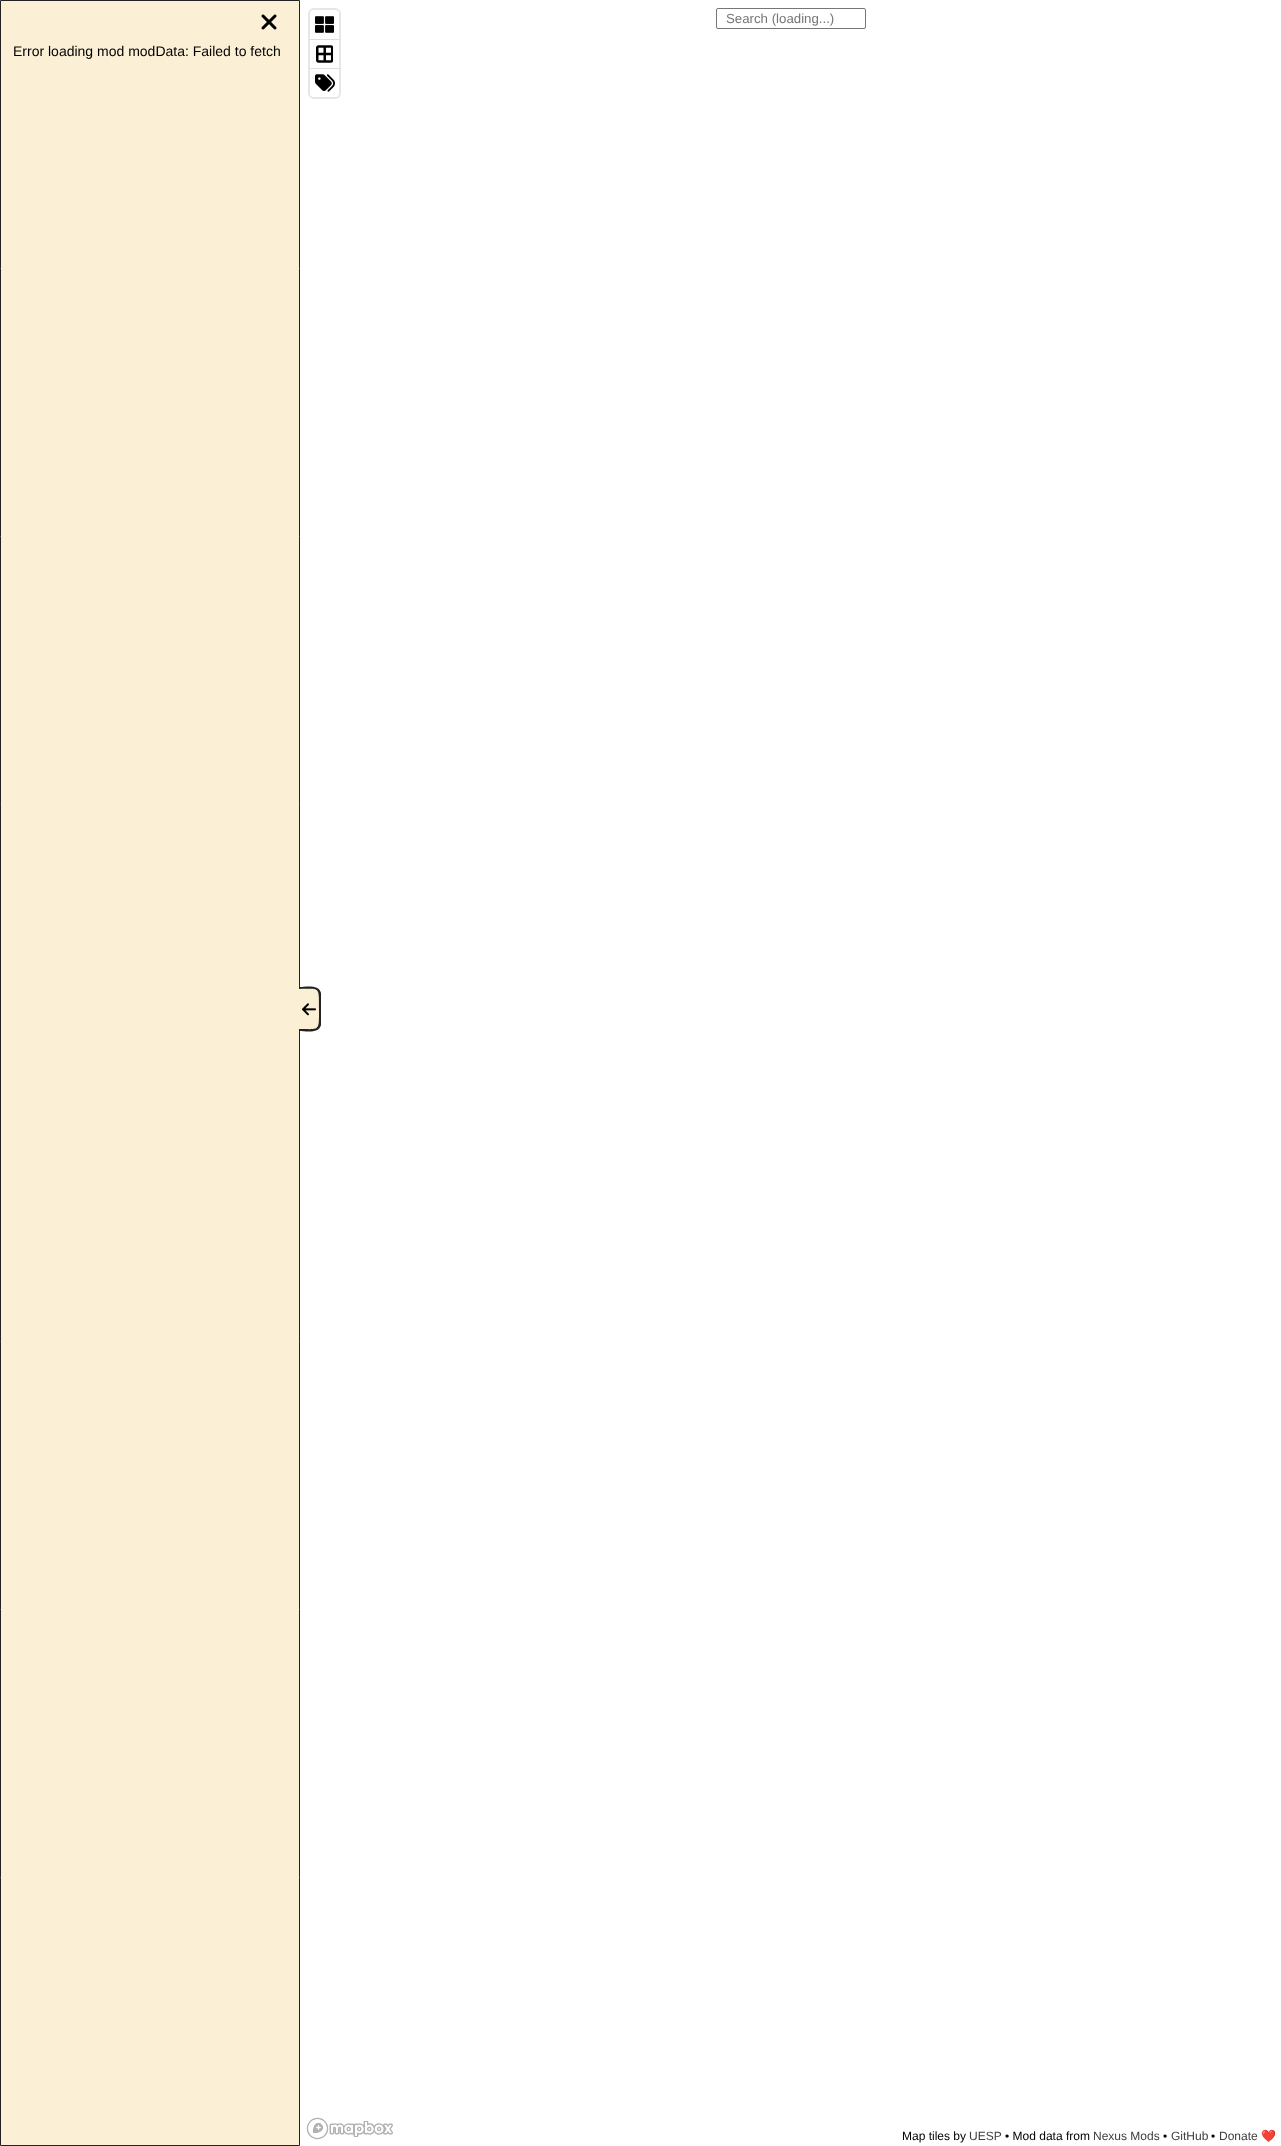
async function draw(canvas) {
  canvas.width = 1281;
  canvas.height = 2146;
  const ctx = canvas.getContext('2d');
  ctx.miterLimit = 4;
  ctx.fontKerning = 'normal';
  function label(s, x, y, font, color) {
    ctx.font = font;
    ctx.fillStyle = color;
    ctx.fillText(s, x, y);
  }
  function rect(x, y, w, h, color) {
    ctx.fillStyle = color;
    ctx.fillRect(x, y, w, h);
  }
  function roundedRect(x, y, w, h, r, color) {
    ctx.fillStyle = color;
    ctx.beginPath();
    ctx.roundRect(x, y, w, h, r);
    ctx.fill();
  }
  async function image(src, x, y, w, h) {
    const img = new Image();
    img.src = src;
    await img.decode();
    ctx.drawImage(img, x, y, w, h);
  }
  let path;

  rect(0, 0, 1281, 2146, '#fff');
  ctx.beginPath();
  ctx.roundRect(716.5, 8.5, 149, 20, 1.5);
  ctx.strokeStyle = '#767676';
  ctx.stroke();
  label('Search (loading...)', 726, 23, '13.25px Liberation Sans', '#757575');
  ctx.fillStyle = '#fbefd5';
  ctx.beginPath();
  ctx.rect(0.5, 0.5, 299, 2145);
  ctx.fill();
  ctx.strokeStyle = '#222';
  ctx.stroke();
  await image('assets/img1.png', 261, 14, 16, 16);
  label('Error loading mod modData: Failed to fetch', 13, 56, '14px Liberation Sans', '#000');
  ctx.fillStyle = '#fbefd5';
  ctx.beginPath();
  ctx.roundRect(299, 987, 22, 44, [0, 8, 8, 0]);
  ctx.fill();
  ctx.fillStyle = '#222';
  path = new Path2D('M299 987C306 987 319 984 321 993V1025C319 1034 306 1031 299 1031ZM299 989C320 989 319 986 319 1009C319 1032 320 1029 299 1029Z');
  ctx.fill(path, 'evenodd');
  await image('assets/img2.png', 302, 1003, 14, 13);
  ctx.beginPath();
  ctx.roundRect(309, 9, 31, 89, 5);
  ctx.strokeStyle = '#e6e6e6';
  ctx.lineWidth = 2;
  ctx.stroke();
  roundedRect(310, 10, 29, 87, 4, '#fff');
  await image('assets/img3.png', 315, 16, 19, 17);
  rect(310, 39, 29, 1, '#ddd');
  await image('assets/img4.png', 316, 45, 17, 18);
  rect(310, 68, 29, 1, '#ddd');
  await image('assets/img5.png', 315, 74, 20, 18);
  await image('assets/img6.png', 306, 2117, 87, 23);
  label('Map tiles by', 902, 2140, '12px Liberation Sans', '#000');
  label('UESP', 969, 2140, '12px Liberation Sans', '#404040');
  label('• Mod data from', 1005, 2140, '12px Liberation Sans', '#000');
  label('Nexus Mods', 1093, 2140, '12px Liberation Sans', '#404040');
  label('•', 1163, 2140, '12px Liberation Sans', '#000');
  label('GitHub', 1171, 2140, '12px Liberation Sans', '#404040');
  label('•', 1211, 2140, '12px Liberation Sans', '#000');
  label('Donate', 1219, 2140, '12px Liberation Sans', '#404040');
  label('❤️', 1261, 2140, '12px Noto Color Emoji', '#404040');
}

draw(document.querySelector('canvas'));
